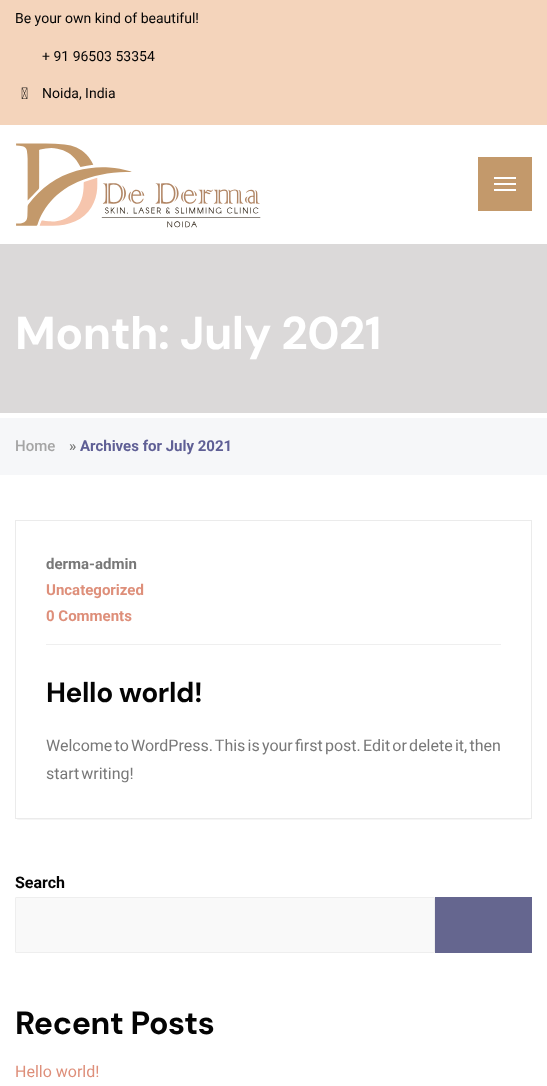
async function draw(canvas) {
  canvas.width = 547;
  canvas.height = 1086;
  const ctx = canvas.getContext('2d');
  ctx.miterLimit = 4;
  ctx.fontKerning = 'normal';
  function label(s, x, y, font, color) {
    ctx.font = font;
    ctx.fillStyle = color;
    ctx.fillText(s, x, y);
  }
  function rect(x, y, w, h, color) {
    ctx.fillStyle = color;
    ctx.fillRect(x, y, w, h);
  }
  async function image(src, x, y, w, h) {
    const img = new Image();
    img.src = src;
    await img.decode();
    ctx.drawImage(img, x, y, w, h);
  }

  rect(0, 0, 547, 1086, '#fff');
  rect(0, 0, 547, 125, '#f4d4bb');
  label('Be your own kind of beautiful!', 15, 23, '14px Roboto', '#040404');
  label('+ 91 96503 53354', 42, 61, '14px Roboto', '#040404');
  await image('assets/img1.png', 21, 87, 7, 12);
  label('Noida, India', 42, 98, '14px Roboto', '#040404');
  await image('assets/img2.png', 16, 143, 245, 85);
  rect(478, 157, 54, 54, '#c3996b');
  rect(494, 177, 22, 2, '#fff');
  rect(494, 183, 22, 2, '#fff');
  rect(494, 189, 22, 2, '#fff');
  rect(0, 244, 547, 169, '#dbd9d9');
  ctx.letterSpacing = '-0.5px';
  label('Month: July 2021', 15, 349, 'bold 46px DM Sans', '#fff');
  rect(0, 418, 547, 57, '#f6f7f9');
  ctx.letterSpacing = '0px';
  label('Home', 15, 451, '500 15px Roboto', '#a5a5a5');
  label('»', 69, 451, '500 15px Roboto', '#787878');
  label('Archives for July 2021', 80, 451, 'bold 15px Roboto', '#5f5f95');
  ctx.save();
  ctx.beginPath();
  ctx.rect(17, 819, 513, 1);
  ctx.clip();
  ctx.fillStyle = '#0000000f';
  ctx.filter = 'blur(1px)';
  ctx.beginPath();
  ctx.rect(17, 525, 513, 295);
  ctx.fill();
  ctx.filter = 'none';
  ctx.restore();
  ctx.strokeStyle = '#ebebeb';
  ctx.strokeRect(15.5, 520.5, 516, 298);
  rect(46, 644, 455, 1, '#efefef');
  label('derma-admin', 46, 569, 'bold 15px Roboto', '#787878');
  label('Uncategorized', 46, 595, 'bold 15px Roboto', '#de8f7a');
  label('0 Comments', 46, 621, 'bold 15px Roboto', '#de8f7a');
  ctx.letterSpacing = '-0.4px';
  label('Hello world!', 46, 702, 'bold 28px DM Sans', '#040404');
  ctx.letterSpacing = '0px';
  ctx.wordSpacing = '-1.75px';
  label('Welcome to WordPress. This is your first post. Edit or delete it, then', 46, 751, '16px Roboto', '#787878');
  ctx.wordSpacing = '-2px';
  label('start writing!', 46, 779, '16px Roboto', '#787878');
  ctx.wordSpacing = '0px';
  label('Search', 15, 888, 'bold 16px Roboto', '#040404');
  ctx.fillStyle = '#f9f9f9';
  ctx.beginPath();
  ctx.roundRect(15.5, 897.5, 419, 55, 0.5);
  ctx.fill();
  ctx.strokeStyle = '#eee';
  ctx.stroke();
  rect(435, 897, 97, 56, '#65668f');
  ctx.letterSpacing = '-0.4px';
  label('Recent Posts', 15, 1034, 'bold 32px DM Sans', '#040404');
  ctx.letterSpacing = '0px';
  label('Hello world!', 15, 1077, '16px Roboto', '#de8f7a');
}

draw(document.querySelector('canvas'));
